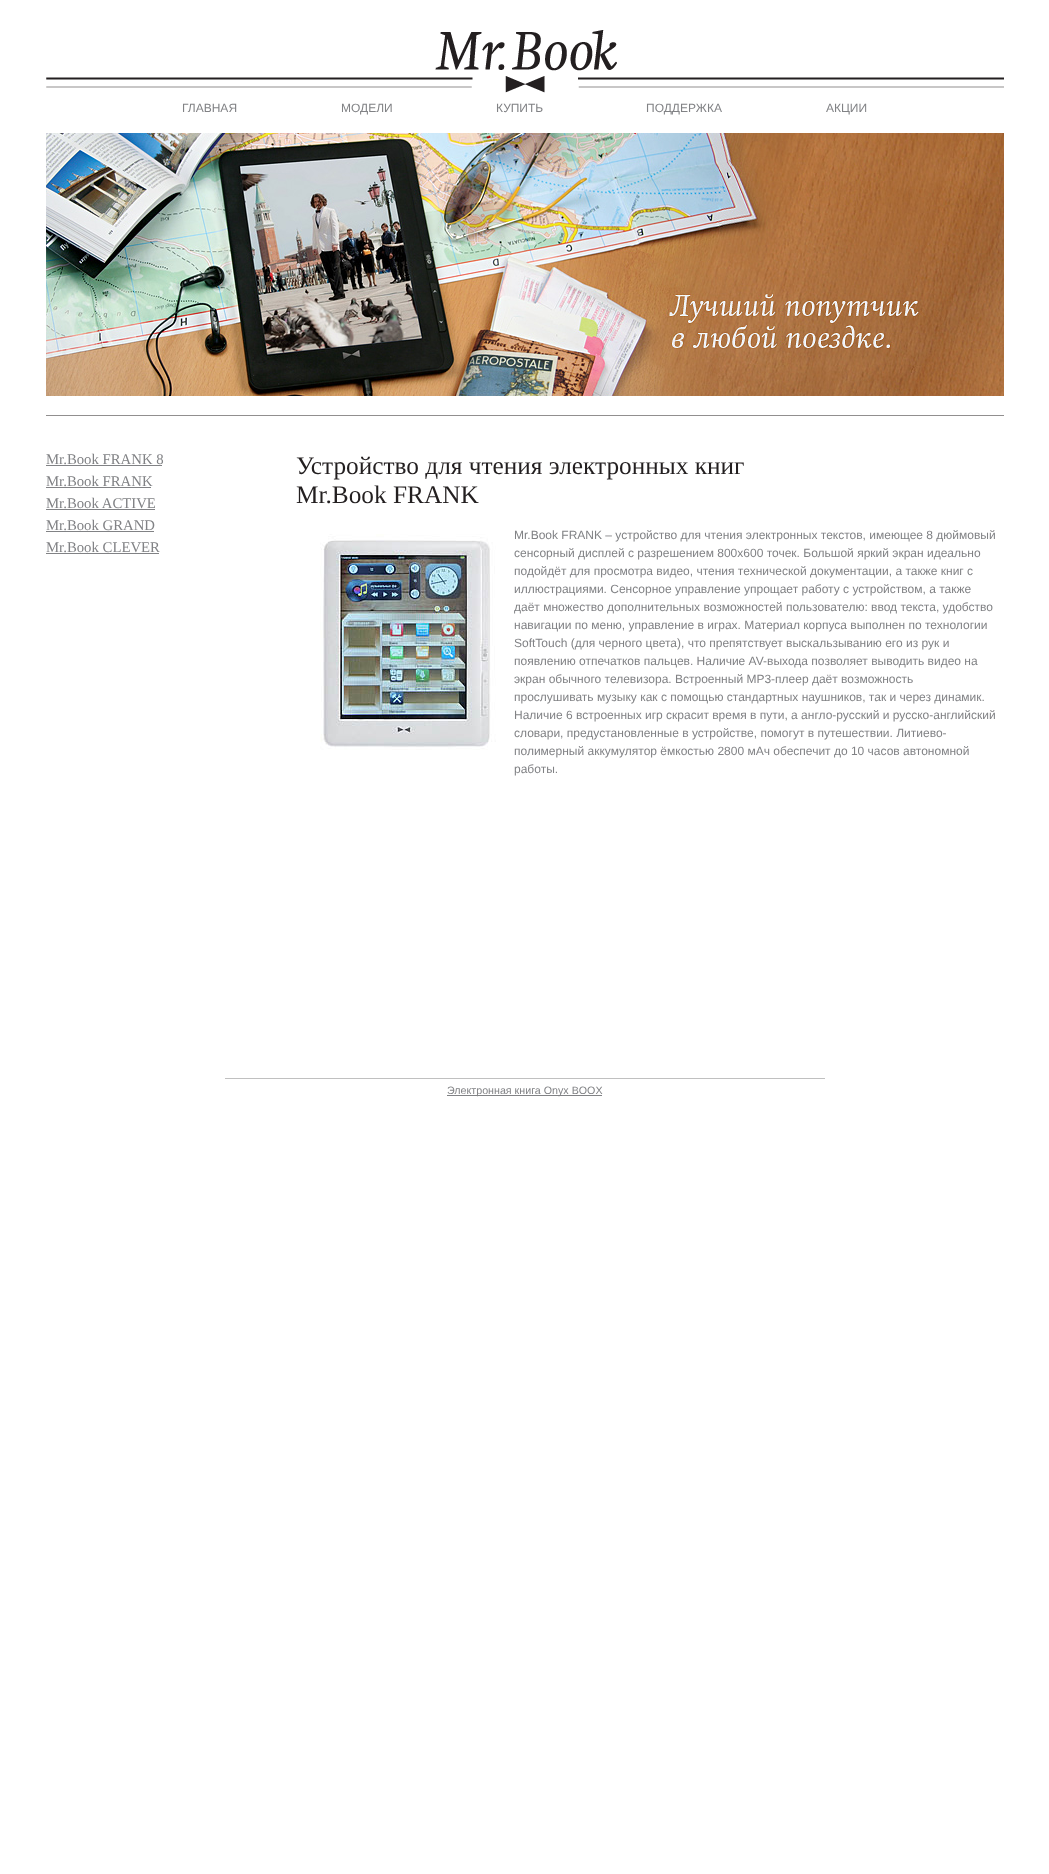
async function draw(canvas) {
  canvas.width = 1049;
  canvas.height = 1874;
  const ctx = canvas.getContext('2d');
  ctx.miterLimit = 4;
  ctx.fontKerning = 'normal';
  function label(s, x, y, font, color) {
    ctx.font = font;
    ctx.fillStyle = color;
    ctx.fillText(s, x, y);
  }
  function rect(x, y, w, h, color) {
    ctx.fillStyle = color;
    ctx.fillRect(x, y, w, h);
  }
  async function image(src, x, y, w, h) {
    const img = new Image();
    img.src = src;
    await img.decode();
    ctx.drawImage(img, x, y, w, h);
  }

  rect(0, 0, 1049, 1874, '#fff');
  await image('assets/img1.png', 46, 30, 958, 63);
  label('ГЛАВНАЯ', 182, 112, '12px Liberation Sans', '#818285');
  label('МОДЕЛИ', 341, 112, '12px Liberation Sans', '#818285');
  label('КУПИТЬ', 496, 112, '12px Liberation Sans', '#818285');
  label('ПОДДЕРЖКА', 646, 112, '12px Liberation Sans', '#818285');
  label('АКЦИИ', 826, 112, '12px Liberation Sans', '#818285');
  rect(46, 415, 958, 1, '#918f8f');
  await image('assets/img2.png', 46, 133, 958, 263);
  label('Mr.Book FRANK 8', 46, 464, '14.75px Liberation Serif', '#818285');
  rect(46, 465, 116, 1, '#818285');
  label('Mr.Book FRANK', 46, 486, '14.75px Liberation Serif', '#818285');
  rect(46, 487, 105, 1, '#818285');
  label('Mr.Book ACTIVE', 46, 508, '14.75px Liberation Serif', '#818285');
  rect(46, 509, 109, 1, '#818285');
  label('Mr.Book GRAND', 46, 530, '14.75px Liberation Serif', '#818285');
  rect(46, 531, 108, 1, '#818285');
  label('Mr.Book CLEVER', 46, 552, '14.75px Liberation Serif', '#818285');
  rect(46, 553, 113, 1, '#818285');
  label('Устройство для чтения электронных книг', 296, 474, '25.3px Liberation Serif', '#231f20');
  label('Mr.Book FRANK', 296, 503, '25.3px Liberation Serif', '#231f20');
  await image('assets/img3.png', 320, 534, 176, 216);
  label('Mr.Book FRANK – устройство для чтения электронных текстов, имеющее 8 дюймовый', 514, 539, '12px Liberation Sans', '#818285');
  label('сенсорный дисплей с разрешением 800x600 точек. Большой яркий экран идеально', 514, 557, '12px Liberation Sans', '#818285');
  label('подойдёт для просмотра видео, чтения технической документации, а также книг с', 514, 575, '12px Liberation Sans', '#818285');
  label('иллюстрациями. Сенсорное управление упрощает работу с устройством, а также', 514, 593, '12px Liberation Sans', '#818285');
  label('даёт множество дополнительных возможностей пользователю: ввод текста, удобство', 514, 611, '12px Liberation Sans', '#818285');
  label('навигации по меню, управление в играх. Материал корпуса выполнен по технологии', 514, 629, '12px Liberation Sans', '#818285');
  label('SoftTouch (для черного цвета), что препятствует выскальзыванию его из рук и', 514, 647, '12px Liberation Sans', '#818285');
  label('появлению отпечатков пальцев. Наличие AV-выхода позволяет выводить видео на', 514, 665, '12px Liberation Sans', '#818285');
  label('экран обычного телевизора. Встроенный MP3-плеер даёт возможность', 514, 683, '12px Liberation Sans', '#818285');
  label('прослушивать музыку как с помощью стандартных наушников, так и через динамик.', 514, 701, '12px Liberation Sans', '#818285');
  label('Наличие 6 встроенных игр скрасит время в пути, а англо-русский и русско-английский', 514, 719, '12px Liberation Sans', '#818285');
  label('словари, предустановленные в устройстве, помогут в путешествии. Литиево-', 514, 737, '12px Liberation Sans', '#818285');
  label('полимерный аккумулятор ёмкостью 2800 мАч обеспечит до 10 часов автономной', 514, 755, '12px Liberation Sans', '#818285');
  label('работы.', 514, 773, '12px Liberation Sans', '#818285');
  rect(225, 1078, 600, 1, '#c0c0c0');
  rect(447, 1095, 155, 1, '#818285');
  label('Электронная книга Onyx BOOX', 447, 1094, '10.7px Liberation Sans', '#818285');
}

draw(document.querySelector('canvas'));
